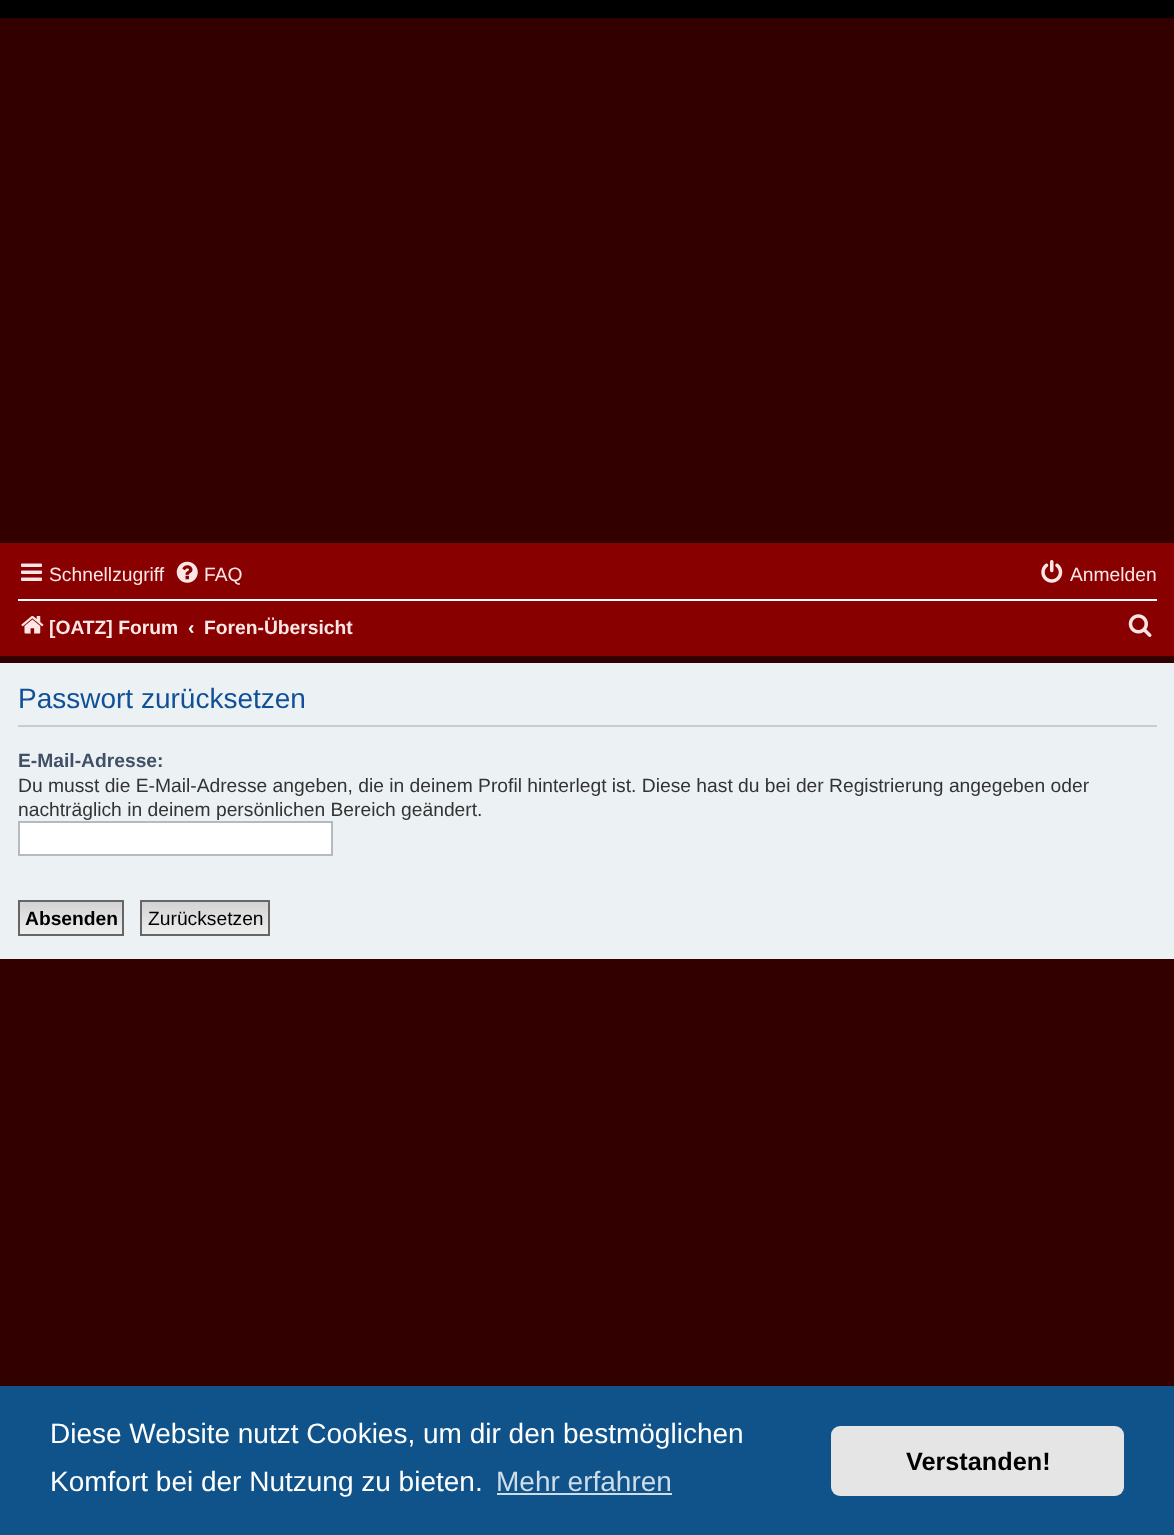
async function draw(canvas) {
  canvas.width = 1174;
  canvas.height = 1535;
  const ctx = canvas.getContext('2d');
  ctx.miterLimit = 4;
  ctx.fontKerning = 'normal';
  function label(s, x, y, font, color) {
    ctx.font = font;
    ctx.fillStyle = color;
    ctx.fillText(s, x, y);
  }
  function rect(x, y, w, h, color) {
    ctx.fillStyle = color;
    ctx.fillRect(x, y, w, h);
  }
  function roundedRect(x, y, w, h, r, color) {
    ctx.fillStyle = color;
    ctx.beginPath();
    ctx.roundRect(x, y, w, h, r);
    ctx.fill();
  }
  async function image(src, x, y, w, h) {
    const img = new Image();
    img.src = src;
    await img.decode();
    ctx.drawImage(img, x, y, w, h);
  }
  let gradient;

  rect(0, 0, 1174, 1535, '#300');
  rect(0, 0, 1174, 18, '#000');
  rect(0, 543, 1174, 113, '#800');
  await image('assets/img1.png', 21, 563, 21, 18);
  label('Schnellzugriff', 49, 581, '19.25px Liberation Sans', '#ffe6e6');
  await image('assets/img2.png', 176, 561, 22, 22);
  label('FAQ', 204, 581, '19.25px Liberation Sans', '#ffe6e6');
  await image('assets/img3.png', 1041, 560, 22, 23);
  label('Anmelden', 1070, 581, '19.25px Liberation Sans', '#ffe6e6');
  rect(18, 599, 1139, 2, '#fff');
  await image('assets/img4.png', 21, 616, 23, 18);
  label('[OATZ] Forum', 49, 634, 'bold 19.25px Liberation Sans', '#ffe6e6');
  label('‹', 188, 634, 'bold 19.25px Liberation Sans', '#fff');
  label('Foren-Übersicht', 204, 634, 'bold 19.25px Liberation Sans', '#ffe6e6');
  await image('assets/img5.png', 1128, 614, 24, 23);
  rect(0, 663, 1174, 296, '#ecf1f3');
  rect(18, 725, 1139, 2, '#ccc');
  label('Passwort zurücksetzen', 18, 708, '28px Liberation Sans', '#115098');
  label('E-Mail-Adresse:', 18, 767, 'bold 19.25px Liberation Sans', '#425067');
  label('Du musst die E-Mail-Adresse angeben, die in deinem Profil hinterlegt ist. Diese hast du bei der Registrierung angegeben oder', 18, 792, '19.25px Liberation Sans', '#333');
  label('nachträglich in deinem persönlichen Bereich geändert.', 18, 816, '19.25px Liberation Sans', '#333');
  ctx.fillStyle = '#fff';
  ctx.beginPath();
  ctx.rect(19, 822, 313, 33);
  ctx.fill();
  ctx.strokeStyle = '#b4bac0';
  ctx.lineWidth = 2;
  ctx.stroke();
  gradient = ctx.createLinearGradient(71, 901, 71, 935);
  gradient.addColorStop(0, '#d2d2d2');
  gradient.addColorStop(1, '#efefef');
  ctx.fillStyle = gradient;
  ctx.fillRect(20, 902, 102, 32);
  ctx.strokeStyle = '#666';
  ctx.strokeRect(19, 901, 104, 34);
  label('Absenden', 25, 925, 'bold 19.25px Liberation Sans', '#000');
  gradient = ctx.createLinearGradient(205, 901, 205, 935);
  gradient.addColorStop(0, '#d2d2d2');
  gradient.addColorStop(1, '#efefef');
  ctx.fillStyle = gradient;
  ctx.fillRect(142, 902, 126, 32);
  ctx.strokeRect(141, 901, 128, 34);
  label('Zurücksetzen', 148, 925, '19.25px Liberation Sans', '#000');
  rect(0, 1386, 1174, 149, '#0f538a');
  label('Diese Website nutzt Cookies, um dir den bestmöglichen', 50, 1443, '28px Liberation Sans', '#fff');
  label('Komfort bei der Nutzung zu bieten.', 50, 1491, '28px Liberation Sans', '#fff');
  label('Mehr erfahren', 496, 1491, '28px Liberation Sans', '#cfdde8');
  rect(497, 1493, 175, 2, '#cfdde8');
  roundedRect(831, 1426, 293, 70, 9, '#e5e5e5');
  label('Verstanden!', 906, 1470, 'bold 25.25px Liberation Sans', '#000');
}

draw(document.querySelector('canvas'));
